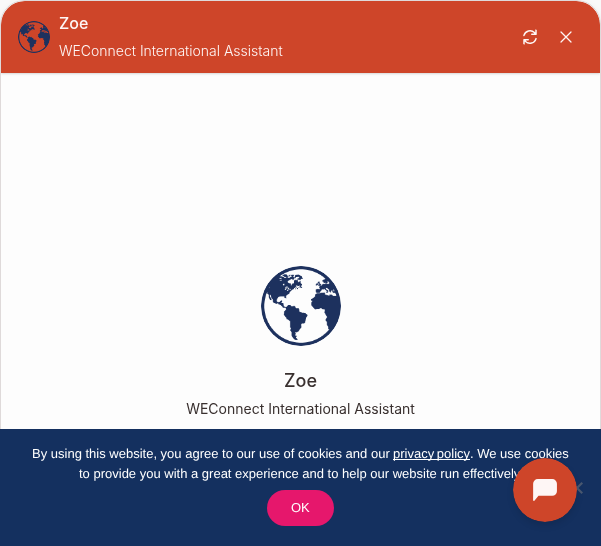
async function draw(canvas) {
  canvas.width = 601;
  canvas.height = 546;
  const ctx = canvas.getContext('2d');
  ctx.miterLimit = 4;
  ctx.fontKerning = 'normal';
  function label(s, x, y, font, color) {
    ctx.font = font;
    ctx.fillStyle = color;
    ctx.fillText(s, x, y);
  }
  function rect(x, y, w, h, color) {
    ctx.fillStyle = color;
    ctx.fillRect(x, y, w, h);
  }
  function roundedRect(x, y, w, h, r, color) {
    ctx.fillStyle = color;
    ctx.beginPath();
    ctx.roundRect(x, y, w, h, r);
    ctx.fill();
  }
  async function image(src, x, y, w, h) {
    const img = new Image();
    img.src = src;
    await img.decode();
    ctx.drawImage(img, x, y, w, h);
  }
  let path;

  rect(0, 0, 601, 546, '#f9f9f9');
  ctx.fillStyle = '#0000001a';
  ctx.filter = 'blur(3px)';
  ctx.beginPath();
  ctx.roundRect(0, 4, 601, 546, 24);
  ctx.fill();
  ctx.filter = 'none';
  await image('assets/img1.png', 0, 0, 601, 429);
  rect(0, 429, 601, 117, '#14305f');
  label('By using this website, you agree to our use of cookies and our', 32, 458, '13px Liberation Sans', '#fff');
  rect(393, 459, 77, 1, '#fff');
  ctx.wordSpacing = '-1px';
  label('privacy policy', 393, 458, '13px Liberation Sans', '#fff');
  ctx.wordSpacing = '0px';
  label('. We use cookies', 470, 458, '13px Liberation Sans', '#fff');
  label('to provide you with a great experience and to help our website run effectively', 79, 478, '13px Liberation Sans', '#fff');
  ctx.fillStyle = '#4a5870';
  path = new Path2D('M581.5 482L583 483.5L572.5 494L571 492.5Z');
  ctx.fill(path);
  path = new Path2D('M571 483.5L572.5 482L583 492.5L581.5 494Z');
  ctx.fill(path);
  roundedRect(267, 490, 67, 36, 18, '#e6176c');
  label('OK', 291, 512, '13px Liberation Sans', '#fff');
  ctx.fillStyle = '#0000001a';
  ctx.filter = 'blur(3px)';
  ctx.beginPath();
  ctx.roundRect(513, 462, 64, 64, 32);
  ctx.fill();
  ctx.filter = 'none';
  await image('assets/img2.png', 513, 458, 64, 64);
}

draw(document.querySelector('canvas'));
